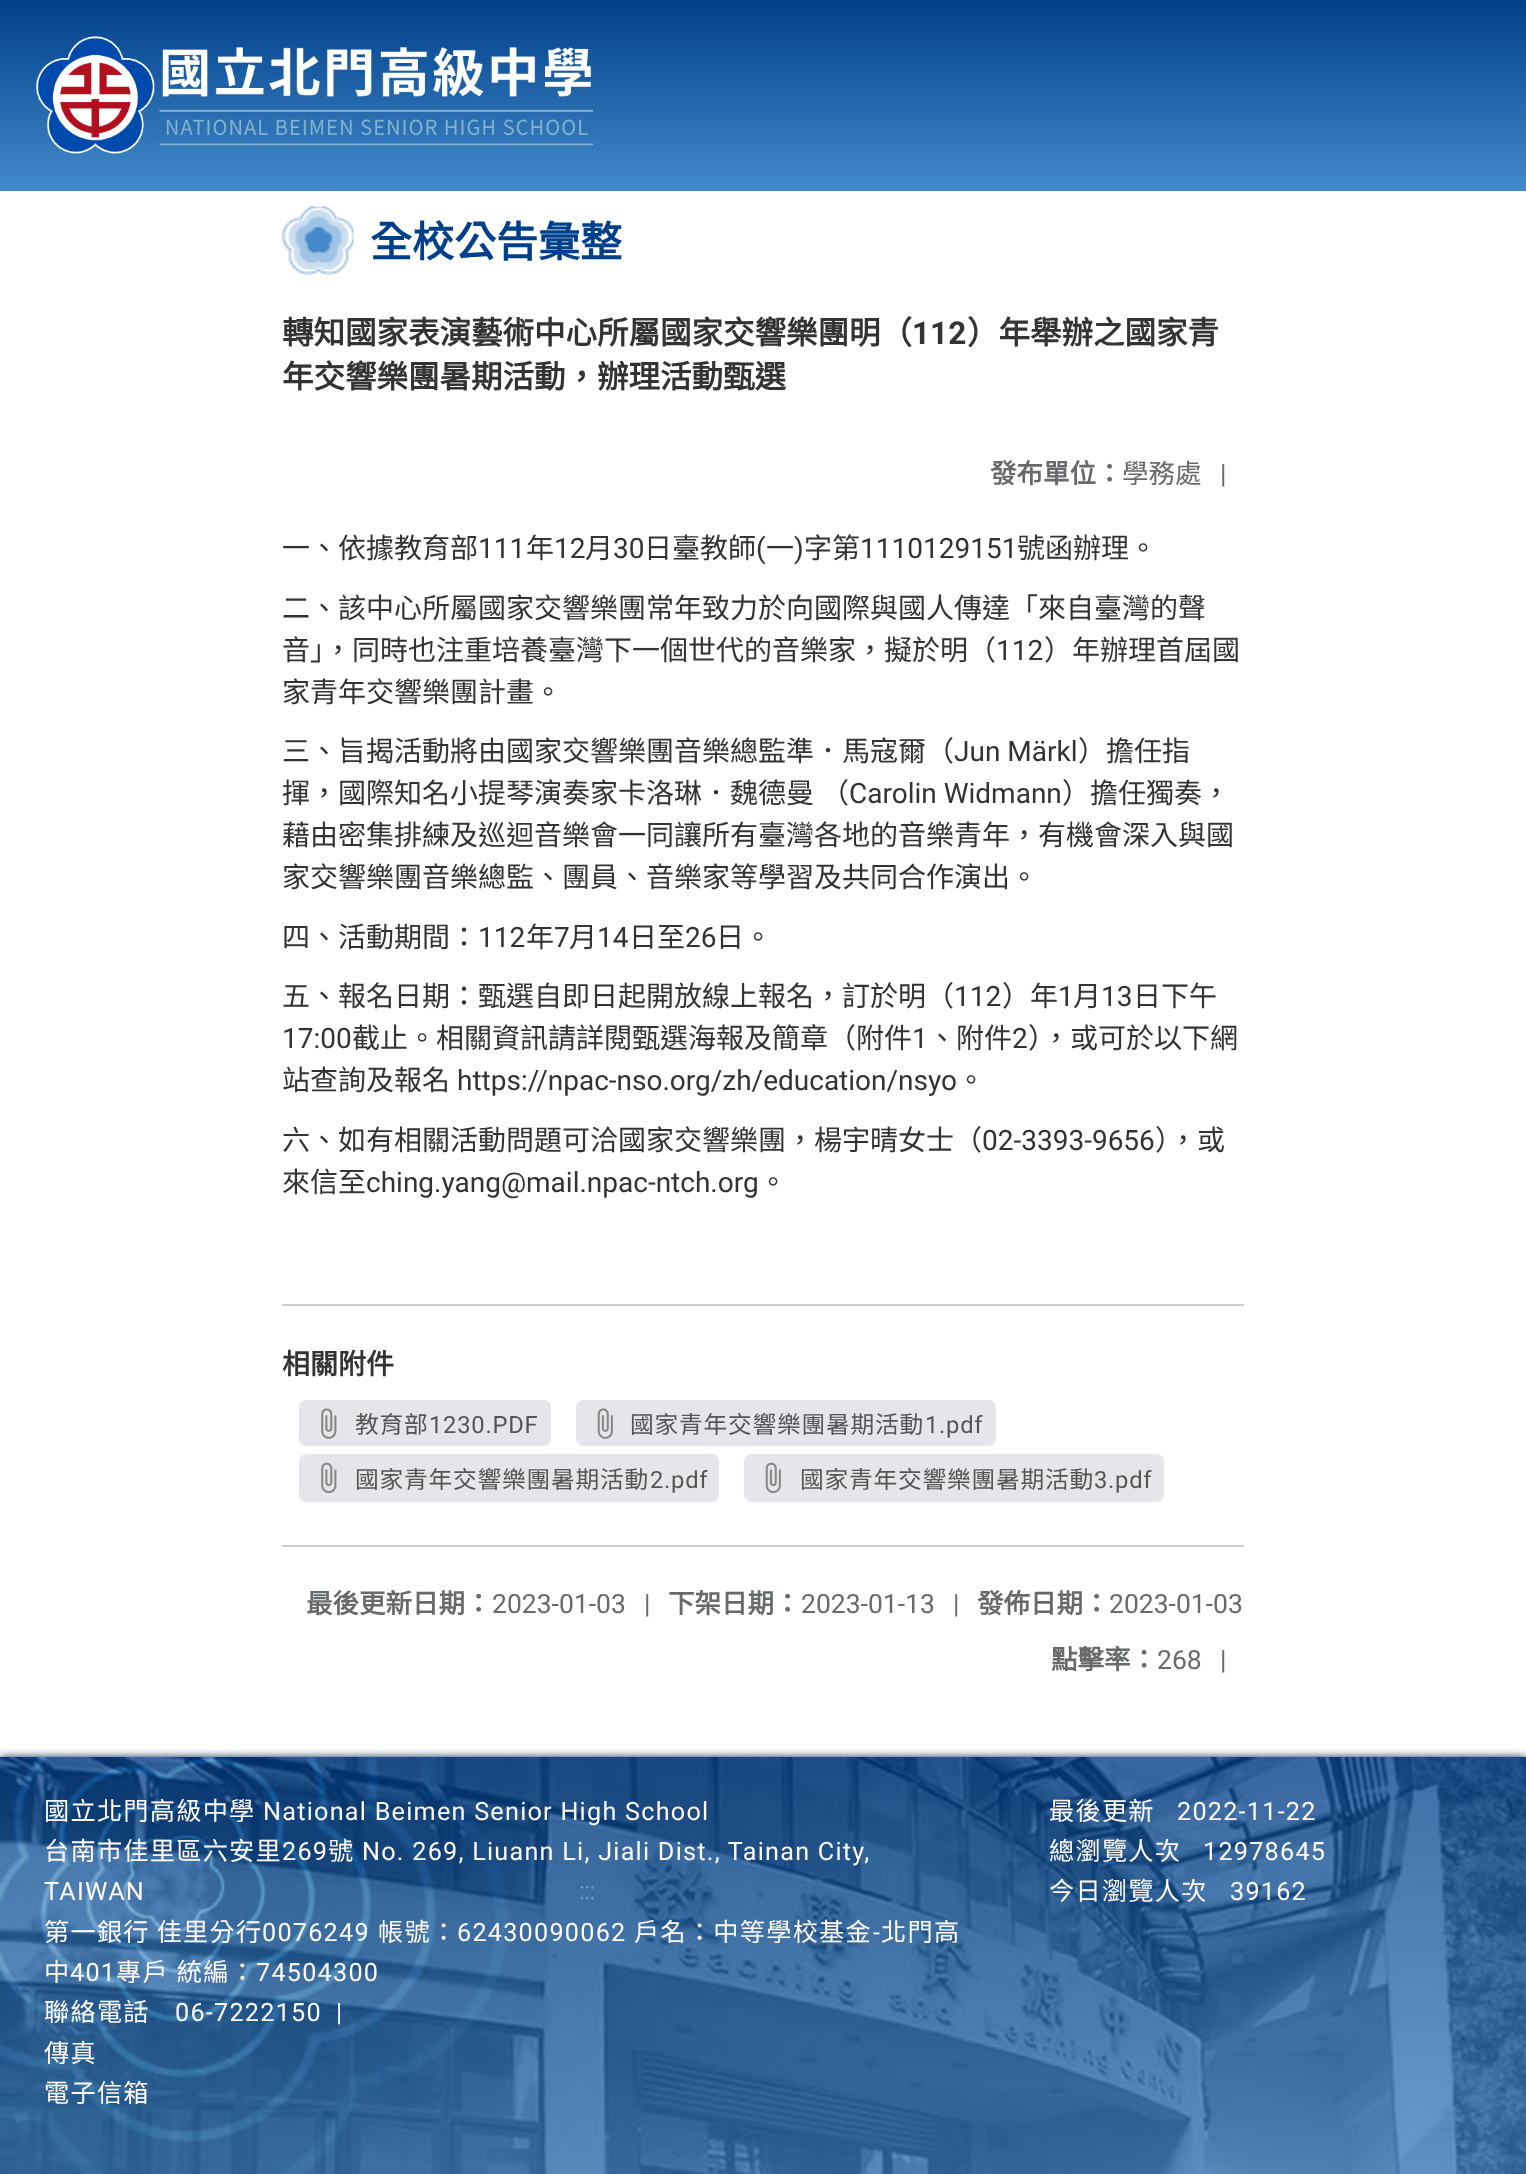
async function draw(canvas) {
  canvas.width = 1526;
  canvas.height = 2174;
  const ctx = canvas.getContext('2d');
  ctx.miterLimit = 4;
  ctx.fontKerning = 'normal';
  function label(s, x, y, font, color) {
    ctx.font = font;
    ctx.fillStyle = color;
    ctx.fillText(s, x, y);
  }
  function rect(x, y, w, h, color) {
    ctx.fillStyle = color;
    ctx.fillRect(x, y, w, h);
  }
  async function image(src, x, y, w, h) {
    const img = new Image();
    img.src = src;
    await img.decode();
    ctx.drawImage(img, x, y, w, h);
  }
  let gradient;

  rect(0, 0, 1526, 2174, '#fff');
  gradient = ctx.createLinearGradient(763, 0, 763, 191);
  gradient.addColorStop(0, '#00408a');
  gradient.addColorStop(1, '#448aca');
  ctx.fillStyle = gradient;
  ctx.fillRect(0, 0, 1526, 191);
  await image('assets/img1.png', 36, 36, 558, 118);
  await image('assets/img2.png', 281, 206, 73, 69);
  label('全校公告彙整', 370, 257, 'bold 42px Noto Sans CJK TC', '#00408b');
  label('轉知國家表演藝術中心所屬國家交響樂團明（', 282, 344, 'bold 31.5px Noto Sans CJK TC', '#333');
  label('112', 912, 344, 'bold 31.5px Roboto', '#333');
  label('）年舉辦之國家青', 967, 344, 'bold 31.5px Noto Sans CJK TC', '#333');
  label('年交響樂團暑期活動，辦理活動甄選', 282, 388, 'bold 31.5px Noto Sans CJK TC', '#333');
  label('發布單位：', 990, 483, 'bold 26.5px Noto Sans CJK TC', '#676a6c');
  label('學務處', 1122, 483, '26.5px Noto Sans CJK TC', '#676a6c');
  label('|', 1220, 483, '26.5px Roboto', '#676a6c');
  label('一、依據教育部', 282, 558, '28px Noto Sans CJK TC', '#333');
  label('111', 478, 558, '28px Roboto', '#333');
  label('年', 526, 558, '28px Noto Sans CJK TC', '#333');
  label('12', 554, 558, '28px Roboto', '#333');
  label('月', 585, 558, '28px Noto Sans CJK TC', '#333');
  label('30', 613, 558, '28px Roboto', '#333');
  label('日臺教師', 644, 558, '28px Noto Sans CJK TC', '#333');
  label('(', 756, 558, '28px Roboto', '#333');
  label('一', 766, 558, '28px Noto Sans CJK TC', '#333');
  label(')', 794, 558, '28px Roboto', '#333');
  label('字第', 804, 558, '28px Noto Sans CJK TC', '#333');
  label('1110129151', 860, 558, '28px Roboto', '#333');
  label('號函辦理。', 1017, 558, '28px Noto Sans CJK TC', '#333');
  label('二、該中心所屬國家交響樂團常年致力於向國際與國人傳達「來自臺灣的聲', 282, 618, '28px Noto Sans CJK TC', '#333');
  label('音」，同時也注重培養臺灣下一個世代的音樂家，擬於明（', 282, 660, '28px Noto Sans CJK TC', '#333');
  label('112', 996, 660, '28px Roboto', '#333');
  label('）年辦理首屆國', 1044, 660, '28px Noto Sans CJK TC', '#333');
  label('家青年交響樂團計畫。', 282, 702, '28px Noto Sans CJK TC', '#333');
  label('三、旨揭活動將由國家交響樂團音樂總監準．馬寇爾（', 282, 761, '28px Noto Sans CJK TC', '#333');
  label('Jun Märkl', 954, 761, '28px Roboto', '#333');
  label('）擔任指', 1078, 761, '28px Noto Sans CJK TC', '#333');
  label('揮，國際知名小提琴演奏家卡洛琳．魏德曼', 282, 803, '28px Noto Sans CJK TC', '#333');
  label('（', 821, 803, '28px Noto Sans CJK TC', '#333');
  label('Carolin Widmann', 849, 803, '28px Roboto', '#333');
  label('）擔任獨奏，', 1062, 803, '28px Noto Sans CJK TC', '#333');
  label('藉由密集排練及巡迴音樂會一同讓所有臺灣各地的音樂青年，有機會深入與國', 282, 845, '28px Noto Sans CJK TC', '#333');
  label('家交響樂團音樂總監、團員、音樂家等學習及共同合作演出。', 282, 887, '28px Noto Sans CJK TC', '#333');
  label('四、活動期間：', 282, 947, '28px Noto Sans CJK TC', '#333');
  label('112', 478, 947, '28px Roboto', '#333');
  label('年', 526, 947, '28px Noto Sans CJK TC', '#333');
  label('7', 554, 947, '28px Roboto', '#333');
  label('月', 569, 947, '28px Noto Sans CJK TC', '#333');
  label('14', 597, 947, '28px Roboto', '#333');
  label('日至', 629, 947, '28px Noto Sans CJK TC', '#333');
  label('26', 685, 947, '28px Roboto', '#333');
  label('日。', 716, 947, '28px Noto Sans CJK TC', '#333');
  label('五、報名日期：甄選自即日起開放線上報名，訂於明（', 282, 1006, '28px Noto Sans CJK TC', '#333');
  label('112', 954, 1006, '28px Roboto', '#333');
  label('）年', 1002, 1006, '28px Noto Sans CJK TC', '#333');
  label('1', 1058, 1006, '28px Roboto', '#333');
  label('月', 1073, 1006, '28px Noto Sans CJK TC', '#333');
  label('13', 1101, 1006, '28px Roboto', '#333');
  label('日下午', 1133, 1006, '28px Noto Sans CJK TC', '#333');
  label('17:00', 282, 1048, '28px Roboto', '#333');
  label('截止。相關資訊請詳閱甄選海報及簡章（附件', 352, 1048, '28px Noto Sans CJK TC', '#333');
  label('1', 912, 1048, '28px Roboto', '#333');
  label('、附件', 928, 1048, '28px Noto Sans CJK TC', '#333');
  label('2', 1012, 1048, '28px Roboto', '#333');
  label('），或可於以下網', 1028, 1048, '28px Noto Sans CJK TC', '#333');
  label('站查詢及報名', 282, 1090, '28px Noto Sans CJK TC', '#333');
  label('https://npac-nso.org/zh/education/nsyo', 457, 1090, '28px Roboto', '#333');
  label('。', 957, 1090, '28px Noto Sans CJK TC', '#333');
  label('六、如有相關活動問題可洽國家交響樂團，楊宇晴女士（', 282, 1150, '28px Noto Sans CJK TC', '#333');
  label('02-3393-9656', 982, 1150, '28px Roboto', '#333');
  label('），或', 1155, 1150, '28px Noto Sans CJK TC', '#333');
  label('來信至', 282, 1192, '28px Noto Sans CJK TC', '#333');
  label('ching.yang@mail.npac-ntch.org', 366, 1192, '28px Roboto', '#333');
  label('。', 759, 1192, '28px Noto Sans CJK TC', '#333');
  rect(282, 1304, 962, 2, '#ccc');
  label('相關附件', 282, 1374, 'bold 28px Noto Sans CJK TC', '#333');
  ctx.fillStyle = '#e5e6e9';
  ctx.beginPath();
  ctx.roundRect(300, 1401, 250, 44, 6);
  ctx.fill();
  ctx.strokeStyle = '#e5e6e9';
  ctx.lineWidth = 2;
  ctx.stroke();
  await image('assets/img3.png', 321, 1408, 16, 31);
  ctx.letterSpacing = '0.75px';
  label('教育部', 355, 1433, '23.75px Noto Sans CJK TC', '#555');
  label('1230.PDF', 429, 1433, '23.75px Roboto', '#555');
  ctx.fillStyle = '#e5e6e9';
  ctx.beginPath();
  ctx.roundRect(577, 1401, 418, 44, 6);
  ctx.fill();
  ctx.stroke();
  await image('assets/img4.png', 597, 1408, 16, 31);
  label('國家青年交響樂團暑期活動', 630, 1433, '23.75px Noto Sans CJK TC', '#555');
  label('1.pdf', 925, 1433, '23.75px Roboto', '#555');
  ctx.fillStyle = '#e5e6e9';
  ctx.beginPath();
  ctx.roundRect(300, 1455, 418, 46, 6);
  ctx.fill();
  ctx.stroke();
  await image('assets/img5.png', 321, 1462, 16, 32);
  label('國家青年交響樂團暑期活動', 355, 1488, '23.75px Noto Sans CJK TC', '#555');
  label('2.pdf', 650, 1488, '23.75px Roboto', '#555');
  ctx.fillStyle = '#e5e6e9';
  ctx.beginPath();
  ctx.roundRect(745, 1455, 418, 46, 6);
  ctx.fill();
  ctx.stroke();
  await image('assets/img6.png', 765, 1462, 16, 32);
  label('國家青年交響樂團暑期活動', 800, 1488, '23.75px Noto Sans CJK TC', '#555');
  label('3.pdf', 1094, 1488, '23.75px Roboto', '#555');
  rect(282, 1545, 962, 2, '#ccc');
  ctx.letterSpacing = '0px';
  label('最後更新日期：', 306, 1613, 'bold 26.5px Noto Sans CJK TC', '#676a6c');
  label('2023-01-03', 492, 1613, '26.5px Roboto', '#676a6c');
  label('|', 644, 1613, '26.5px Roboto', '#676a6c');
  label('下架日期：', 668, 1613, 'bold 26.5px Noto Sans CJK TC', '#676a6c');
  label('2023-01-13', 801, 1613, '26.5px Roboto', '#676a6c');
  label('|', 953, 1613, '26.5px Roboto', '#676a6c');
  label('發佈日期：', 977, 1613, 'bold 26.5px Noto Sans CJK TC', '#676a6c');
  label('2023-01-03', 1109, 1613, '26.5px Roboto', '#676a6c');
  label('點擊率：', 1051, 1669, 'bold 26.5px Noto Sans CJK TC', '#676a6c');
  label('268', 1157, 1669, '26.5px Roboto', '#676a6c');
  label('|', 1220, 1669, '26.5px Roboto', '#676a6c');
  ctx.fillStyle = '#002840';
  ctx.filter = 'blur(4.5px)';
  ctx.beginPath();
  ctx.rect(0, 1757, 1526, 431);
  ctx.fill();
  ctx.filter = 'none';
  await image('assets/img7.png', 0, 1757, 1526, 417);
  ctx.letterSpacing = '1.25px';
  label('國立北門高級中學', 44, 1820, '25.2px Noto Sans CJK TC', '#fff9f6');
  label('National Beimen Senior High School', 263, 1820, '25.2px Roboto', '#fff9f6');
  label('台南市佳里區六安里', 44, 1860, '25.2px Noto Sans CJK TC', '#fff9f6');
  label('269', 282, 1860, '25.2px Roboto', '#fff9f6');
  label('號', 328, 1860, '25.2px Noto Sans CJK TC', '#fff9f6');
  label('No. 269, Liuann Li, Jiali Dist., Tainan City,', 362, 1860, '25.2px Roboto', '#fff9f6');
  label('TAIWAN', 44, 1900, '25.2px Roboto', '#fff9f6');
  label('第一銀行 佳里分行', 44, 1941, '25.2px Noto Sans CJK TC', '#fff9f6');
  label('0076249', 262, 1941, '25.2px Roboto', '#fff9f6');
  label('帳號：', 378, 1941, '25.2px Noto Sans CJK TC', '#fff9f6');
  label('62430090062', 457, 1941, '25.2px Roboto', '#fff9f6');
  label('戶名：中等學校基金', 634, 1941, '25.2px Noto Sans CJK TC', '#fff9f6');
  label('-', 873, 1941, '25.2px Roboto', '#fff9f6');
  label('北門高', 881, 1941, '25.2px Noto Sans CJK TC', '#fff9f6');
  label('中', 44, 1981, '25.2px Noto Sans CJK TC', '#fff9f6');
  label('401', 70, 1981, '25.2px Roboto', '#fff9f6');
  ctx.wordSpacing = '1px';
  label('專戶 統編：', 116, 1981, '25.2px Noto Sans CJK TC', '#fff9f6');
  ctx.wordSpacing = '0px';
  label('74504300', 256, 1981, '25.2px Roboto', '#fff9f6');
  label('聯絡電話', 44, 2021, '25.2px Noto Sans CJK TC', '#fff9f6');
  label('06-7222150', 175, 2021, '25.2px Roboto', '#fff9f6');
  label('|', 336, 2021, '25.2px Roboto', '#fff9f6');
  label('傳真', 44, 2062, '25.2px Noto Sans CJK TC', '#fff9f6');
  label('電子信箱', 44, 2102, '25.2px Noto Sans CJK TC', '#fff9f6');
  label('最後更新', 1049, 1820, '25.2px Noto Sans CJK TC', '#fff9f6');
  label('2022-11-22', 1177, 1820, '25.2px Roboto', '#fff9f6');
  label('總瀏覽人次', 1049, 1860, '25.2px Noto Sans CJK TC', '#fff9f6');
  label('12978645', 1203, 1860, '25.2px Roboto', '#fff9f6');
  label('今日瀏覽人次', 1049, 1900, '25.2px Noto Sans CJK TC', '#fff9f6');
  label('39162', 1230, 1900, '25.2px Roboto', '#fff9f6');
}

draw(document.querySelector('canvas'));
